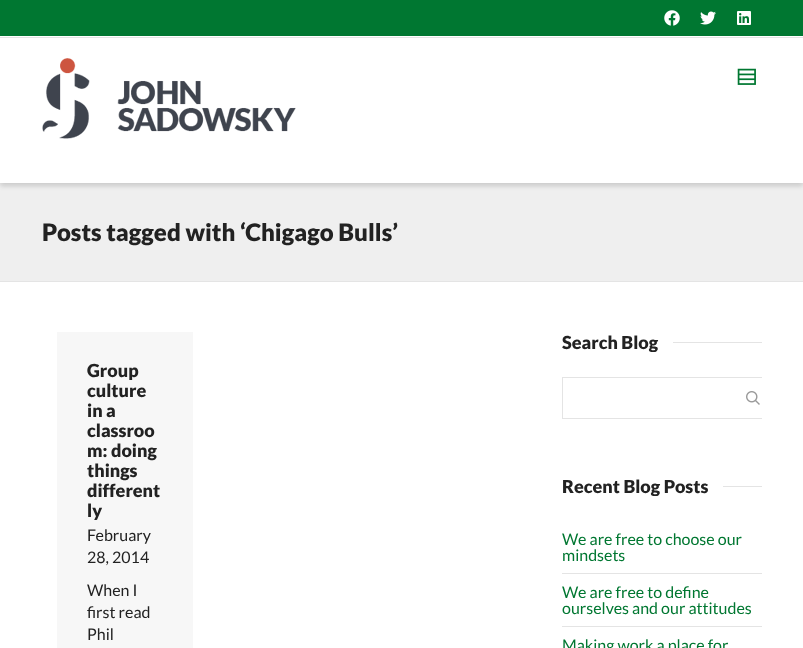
async function draw(canvas) {
  canvas.width = 803;
  canvas.height = 648;
  const ctx = canvas.getContext('2d');
  ctx.miterLimit = 4;
  ctx.fontKerning = 'normal';
  function label(s, x, y, font, color) {
    ctx.font = font;
    ctx.fillStyle = color;
    ctx.fillText(s, x, y);
  }
  function rect(x, y, w, h, color) {
    ctx.fillStyle = color;
    ctx.fillRect(x, y, w, h);
  }
  async function image(src, x, y, w, h) {
    const img = new Image();
    img.src = src;
    await img.decode();
    ctx.drawImage(img, x, y, w, h);
  }

  rect(0, 0, 803, 648, '#fff');
  rect(0, 183, 803, 98, '#efefef');
  ctx.fillStyle = '#0000001a';
  ctx.filter = 'blur(2.5px)';
  ctx.beginPath();
  ctx.rect(0, 39, 803, 147);
  ctx.fill();
  ctx.filter = 'none';
  ctx.fillStyle = '#0000000d';
  ctx.filter = 'blur(2.5px)';
  ctx.beginPath();
  ctx.rect(0, 39, 803, 147);
  ctx.fill();
  ctx.filter = 'none';
  rect(0, 0, 803, 36, '#007731');
  await image('assets/img1.png', 664, 10, 16, 16);
  await image('assets/img2.png', 700, 11, 16, 14);
  await image('assets/img3.png', 737, 11, 14, 14);
  rect(0, 36, 803, 147, '#fff');
  rect(0, 37, 803, 1, '#e4e4e4');
  await image('assets/img4.png', 42, 58, 254, 81);
  await image('assets/img5.png', 737, 68, 19, 17);
  rect(0, 281, 803, 1, '#e4e4e4');
  label('Posts tagged with ‘Chigago Bulls’', 42, 241, '900 24px Lato', '#222');
  rect(57, 332, 136, 316, '#f7f7f7');
  label('Group', 87, 377, '900 18px Lato', '#222');
  label('culture', 87, 397, '900 18px Lato', '#222');
  label('in a', 87, 417, '900 18px Lato', '#222');
  label('classroo', 87, 437, '900 18px Lato', '#222');
  label('m: doing', 87, 457, '900 18px Lato', '#222');
  label('things', 87, 477, '900 18px Lato', '#222');
  label('different', 87, 497, '900 18px Lato', '#222');
  label('ly', 87, 517, '900 18px Lato', '#222');
  label('February', 87, 541, '16px Lato', '#222');
  label('28, 2014', 87, 563, '16px Lato', '#222');
  label('When I', 87, 596, '16px Lato', '#222');
  label('first read', 87, 618, '16px Lato', '#222');
  label('Phil', 87, 640, '16px Lato', '#222');
  ctx.save();
  ctx.beginPath();
  ctx.rect(562, 332, 200, 20);
  ctx.clip();
  label('Search Blog', 562, 349, '900 18px Lato', '#222');
  ctx.restore();
  rect(673, 342, 89, 1, '#e4e4e4');
  ctx.save();
  ctx.beginPath();
  ctx.rect(42, 282, 720, 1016);
  ctx.clip();
  ctx.strokeStyle = '#e4e4e4';
  ctx.strokeRect(562.5, 377.5, 214, 41);
  ctx.restore();
  await image('assets/img6.png', 746, 391, 14, 14);
  ctx.save();
  ctx.beginPath();
  ctx.rect(562, 476, 200, 20);
  ctx.clip();
  label('Recent Blog Posts', 562, 493, '900 18px Lato', '#222');
  ctx.restore();
  rect(723, 486, 39, 1, '#e4e4e4');
  label('We are free to choose our', 562, 545, '16px Lato', '#007731');
  label('mindsets', 562, 561, '16px Lato', '#007731');
  rect(562, 573, 200, 1, '#e4e4e4');
  label('We are free to define', 562, 598, '16px Lato', '#007731');
  label('ourselves and our attitudes', 562, 614, '16px Lato', '#007731');
  rect(562, 626, 200, 1, '#e4e4e4');
  label('Making work a place for', 562, 651, '16px Lato', '#007731');
}

draw(document.querySelector('canvas'));
